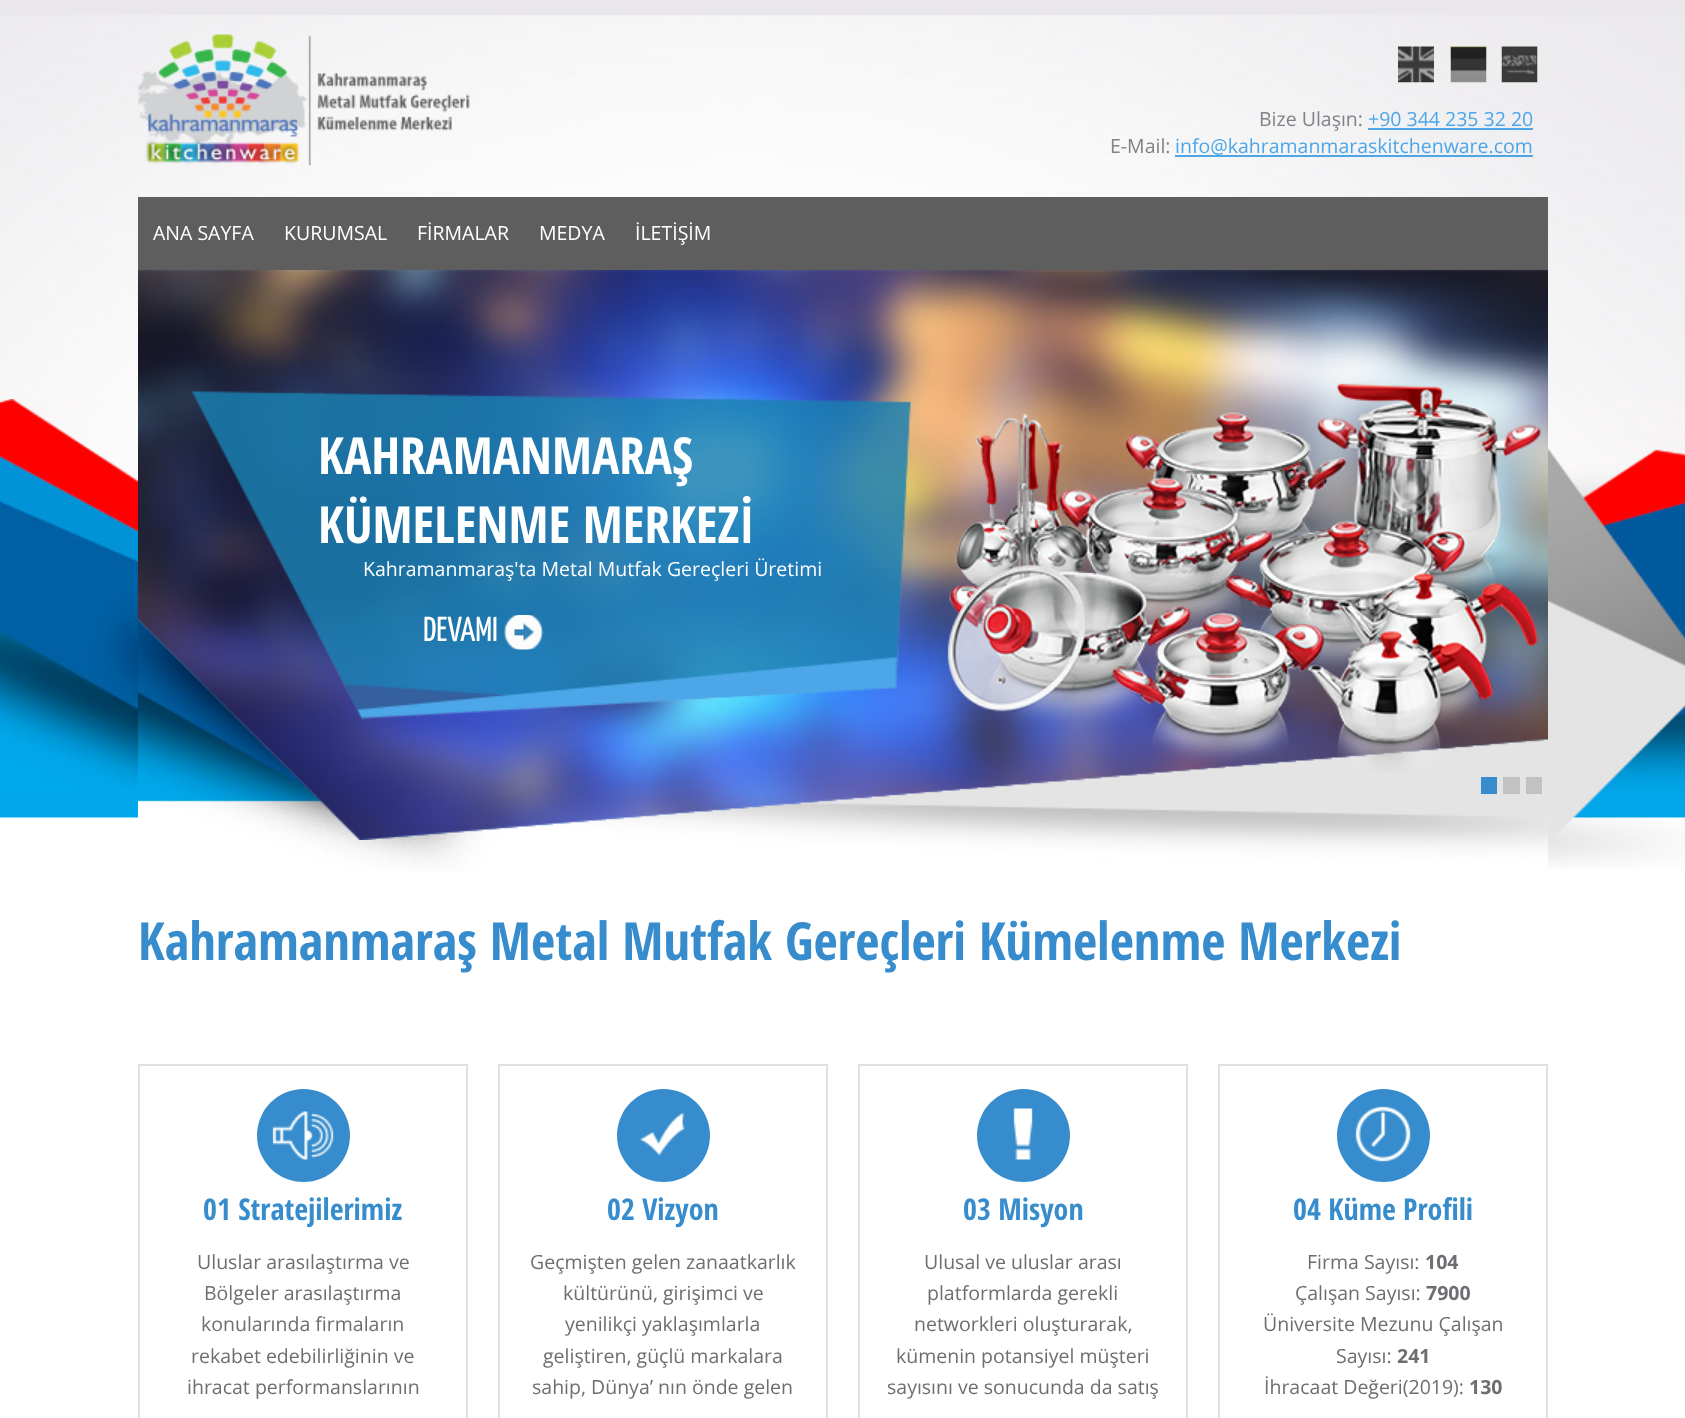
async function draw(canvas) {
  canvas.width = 1685;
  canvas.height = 1418;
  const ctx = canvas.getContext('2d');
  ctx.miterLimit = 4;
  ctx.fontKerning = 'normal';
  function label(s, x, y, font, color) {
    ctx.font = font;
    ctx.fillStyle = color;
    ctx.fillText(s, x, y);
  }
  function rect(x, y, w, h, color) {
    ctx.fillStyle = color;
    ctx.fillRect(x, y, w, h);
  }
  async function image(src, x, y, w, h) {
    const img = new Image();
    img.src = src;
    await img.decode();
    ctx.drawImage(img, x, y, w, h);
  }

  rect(0, 0, 1685, 1418, '#fff');
  await image('assets/img1.png', 0, 0, 1685, 818);
  await image('assets/img2.png', 0, 15, 1685, 384);
  await image('assets/img3.png', 138, 34, 332, 132);
  await image('assets/img4.png', 1398, 46, 36, 37);
  await image('assets/img5.png', 1450, 46, 37, 37);
  await image('assets/img6.png', 1501, 46, 37, 37);
  label('Bize Ulaşın:', 1259, 126, '19.5px Open Sans', '#808285');
  label('+90 344 235 32 20', 1368, 126, '19.5px Open Sans', '#4ca6e8');
  rect(1368, 128, 165, 2, '#4ca6e8');
  label('E-Mail:', 1110, 153, '19.5px Open Sans', '#808285');
  label('info@kahramanmaraskitchenware.com', 1175, 153, '19.5px Open Sans', '#4ca6e8');
  rect(1175, 155, 358, 2, '#4ca6e8');
  rect(138, 197, 1410, 73, '#5e5e5e');
  label('ANA SAYFA', 153, 240, '19.5px Open Sans', '#fff');
  label('KURUMSAL', 284, 240, '19.5px Open Sans', '#fff');
  label('FİRMALAR', 417, 240, '19.5px Open Sans', '#fff');
  label('MEDYA', 539, 240, '19.5px Open Sans', '#fff');
  label('İLETİŞİM', 635, 240, '19.5px Open Sans', '#fff');
  await image('assets/img7.png', 0, 399, 138, 389);
  await image('assets/img8.png', 138, 617, 1410, 254);
  await image('assets/img9.png', 138, 270, 1410, 570);
  await image('assets/img10.png', 191, 391, 720, 329);
  await image('assets/img11.png', 947, 383, 594, 390);
  label('KAHRAMANMARAŞ', 318, 474, 'bold 51px Open Sans Condensed', '#fff');
  label('KÜMELENME MERKEZİ', 318, 543, 'bold 51px Open Sans Condensed', '#fff');
  label('Kahramanmaraş\'ta Metal Mutfak Gereçleri Üretimi', 363, 576, '19.5px Open Sans', '#fff');
  await image('assets/img12.png', 504, 615, 39, 35);
  label('DEVAMI', 423, 641, '34.5px Yanone Kaffeesatz', '#fff');
  rect(1481, 777, 16, 17, '#368ccc');
  rect(1503, 777, 17, 17, '#c3c2c2');
  rect(1526, 777, 16, 17, '#c3c2c2');
  await image('assets/img13.png', 1548, 399, 137, 470);
  label('Kahramanmaraş Metal Mutfak Gereçleri Kümelenme Merkezi', 138, 960, 'bold 52.5px Open Sans Condensed', '#368ccc');
  ctx.strokeStyle = '#e0e0e0';
  ctx.lineWidth = 2;
  ctx.strokeRect(139, 1065, 328, 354);
  ctx.beginPath();
  ctx.arc(303.5, 1135.5, 46.5, 0, 2 * Math.PI);
  ctx.fill();
  await image('assets/img14.png', 272, 1111, 62, 49);
  label('01 Stratejilerimiz', 203, 1220, 'bold 30px Open Sans Condensed', '#368ccc');
  label('Uluslar arasılaştırma ve', 197, 1269, '19.5px Open Sans', '#6d6e71');
  label('Bölgeler arasılaştırma', 204, 1300, '19.5px Open Sans', '#6d6e71');
  label('konularında firmaların', 201, 1331, '19.5px Open Sans', '#6d6e71');
  label('rekabet edebilirliğinin ve', 191, 1363, '19.5px Open Sans', '#6d6e71');
  label('ihracat performanslarının', 187, 1394, '19.5px Open Sans', '#6d6e71');
  ctx.strokeRect(499, 1065, 328, 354);
  ctx.fillStyle = '#368ccc';
  ctx.beginPath();
  ctx.arc(663.5, 1135.5, 46.5, 0, 2 * Math.PI);
  ctx.fill();
  await image('assets/img15.png', 640, 1112, 45, 44);
  label('02 Vizyon', 607, 1220, 'bold 30px Open Sans Condensed', '#368ccc');
  label('Geçmişten gelen zanaatkarlık', 530, 1269, '19.5px Open Sans', '#6d6e71');
  label('kültürünü, girişimci ve', 563, 1300, '19.5px Open Sans', '#6d6e71');
  label('yenilikçi yaklaşımlarla', 565, 1331, '19.5px Open Sans', '#6d6e71');
  label('geliştiren, güçlü markalara', 543, 1363, '19.5px Open Sans', '#6d6e71');
  label('sahip, Dünya’ nın önde gelen', 532, 1394, '19.5px Open Sans', '#6d6e71');
  ctx.strokeRect(859, 1065, 328, 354);
  ctx.fillStyle = '#368ccc';
  ctx.beginPath();
  ctx.arc(1023.5, 1135.5, 46.5, 0, 2 * Math.PI);
  ctx.fill();
  await image('assets/img16.png', 1013, 1108, 20, 52);
  label('03 Misyon', 963, 1220, 'bold 30px Open Sans Condensed', '#368ccc');
  label('Ulusal ve uluslar arası', 924, 1269, '19.5px Open Sans', '#6d6e71');
  label('platformlarda gerekli', 927, 1300, '19.5px Open Sans', '#6d6e71');
  label('networkleri oluşturarak,', 914, 1331, '19.5px Open Sans', '#6d6e71');
  label('kümenin potansiyel müşteri', 896, 1363, '19.5px Open Sans', '#6d6e71');
  label('sayısını ve sonucunda da satış', 887, 1394, '19.5px Open Sans', '#6d6e71');
  ctx.strokeRect(1219, 1065, 328, 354);
  ctx.fillStyle = '#368ccc';
  ctx.beginPath();
  ctx.arc(1383.5, 1135.5, 46.5, 0, 2 * Math.PI);
  ctx.fill();
  await image('assets/img17.png', 1355, 1106, 56, 56);
  label('04 Küme Profili', 1293, 1220, 'bold 30px Open Sans Condensed', '#368ccc');
  label('Firma Sayısı:', 1307, 1269, '19.5px Open Sans', '#6d6e71');
  label('104', 1425, 1269, 'bold 19.5px Open Sans', '#6d6e71');
  label('Çalışan Sayısı:', 1295, 1300, '19.5px Open Sans', '#6d6e71');
  label('7900', 1426, 1300, 'bold 19.5px Open Sans', '#6d6e71');
  label('Üniversite Mezunu Çalışan', 1263, 1331, '19.5px Open Sans', '#6d6e71');
  label('Sayısı:', 1336, 1363, '19.5px Open Sans', '#6d6e71');
  label('241', 1397, 1363, 'bold 19.5px Open Sans', '#6d6e71');
  label('İhracaat Değeri(2019):', 1264, 1394, '19.5px Open Sans', '#6d6e71');
  label('130', 1469, 1394, 'bold 19.5px Open Sans', '#6d6e71');
}

draw(document.querySelector('canvas'));
